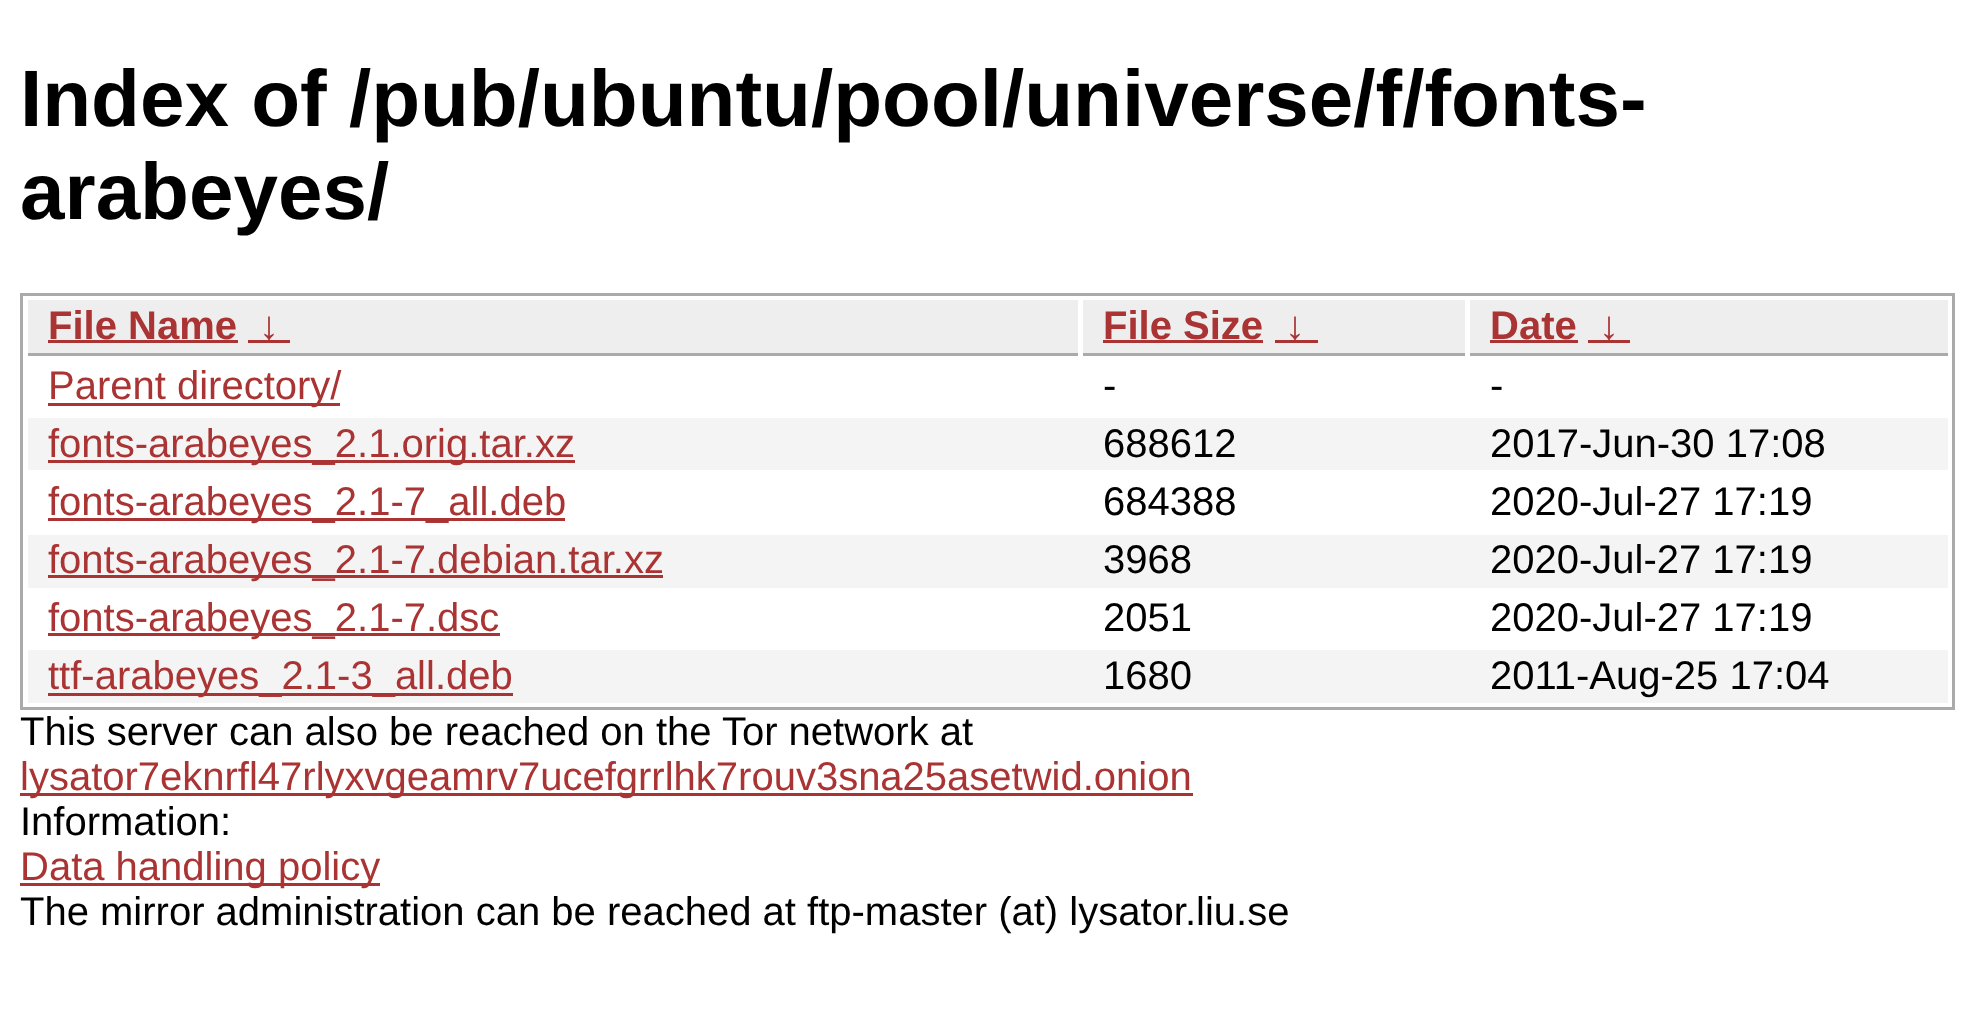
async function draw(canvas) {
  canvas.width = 1975;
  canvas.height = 1009;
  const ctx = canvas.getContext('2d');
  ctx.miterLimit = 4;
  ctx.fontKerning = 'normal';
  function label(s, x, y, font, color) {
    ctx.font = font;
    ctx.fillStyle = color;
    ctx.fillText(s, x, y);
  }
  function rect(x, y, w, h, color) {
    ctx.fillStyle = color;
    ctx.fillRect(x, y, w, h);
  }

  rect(0, 0, 1975, 1009, '#fff');
  label('Index of /pub/ubuntu/pool/universe/f/fonts-', 20, 126, 'bold 80px Liberation Sans', '#000');
  label('arabeyes/', 20, 219, 'bold 80px Liberation Sans', '#000');
  ctx.strokeStyle = '#aaa';
  ctx.lineWidth = 3;
  ctx.strokeRect(21.5, 294.5, 1932, 414);
  rect(28, 300, 1050, 53, '#eee');
  rect(28, 353, 1050, 3, '#aaa');
  label('File Name', 48, 339, 'bold 40px Liberation Sans', '#a33');
  rect(48, 340, 190, 3, '#a33');
  rect(248, 340, 42, 3, '#a33');
  label('↓', 259, 339, 'bold 40px Liberation Sans', '#a33');
  rect(1083, 300, 382, 53, '#eee');
  rect(1083, 353, 382, 3, '#aaa');
  label('File Size', 1103, 339, 'bold 40px Liberation Sans', '#a33');
  rect(1103, 340, 160, 3, '#a33');
  rect(1275, 340, 43, 3, '#a33');
  label('↓', 1285, 339, 'bold 40px Liberation Sans', '#a33');
  rect(1470, 300, 478, 53, '#eee');
  rect(1470, 353, 478, 3, '#aaa');
  label('Date', 1490, 339, 'bold 40px Liberation Sans', '#a33');
  rect(1490, 340, 88, 3, '#a33');
  rect(1588, 340, 42, 3, '#a33');
  label('↓', 1599, 339, 'bold 40px Liberation Sans', '#a33');
  rect(48, 403, 292, 3, '#a33');
  label('Parent directory/', 48, 399, '40px Liberation Sans', '#a33');
  label('-', 1103, 399, '40px Liberation Sans', '#000');
  label('-', 1490, 399, '40px Liberation Sans', '#000');
  rect(28, 418, 1920, 52, '#f4f4f4');
  rect(48, 460, 527, 3, '#a33');
  label('fonts-arabeyes_2.1.orig.tar.xz', 48, 457, '40px Liberation Sans', '#a33');
  label('688612', 1103, 457, '40px Liberation Sans', '#000');
  label('2017-Jun-30 17:08', 1490, 457, '40px Liberation Sans', '#000');
  rect(48, 518, 517, 3, '#a33');
  label('fonts-arabeyes_2.1-7_all.deb', 48, 515, '40px Liberation Sans', '#a33');
  label('684388', 1103, 515, '40px Liberation Sans', '#000');
  label('2020-Jul-27 17:19', 1490, 515, '40px Liberation Sans', '#000');
  rect(28, 535, 1920, 53, '#f4f4f4');
  rect(48, 575, 615, 3, '#a33');
  label('fonts-arabeyes_2.1-7.debian.tar.xz', 48, 573, '40px Liberation Sans', '#a33');
  label('3968', 1103, 573, '40px Liberation Sans', '#000');
  label('2020-Jul-27 17:19', 1490, 573, '40px Liberation Sans', '#000');
  rect(48, 633, 452, 3, '#a33');
  label('fonts-arabeyes_2.1-7.dsc', 48, 631, '40px Liberation Sans', '#a33');
  label('2051', 1103, 631, '40px Liberation Sans', '#000');
  label('2020-Jul-27 17:19', 1490, 631, '40px Liberation Sans', '#000');
  rect(28, 650, 1920, 53, '#f4f4f4');
  rect(48, 693, 465, 3, '#a33');
  label('ttf-arabeyes_2.1-3_all.deb', 48, 689, '40px Liberation Sans', '#a33');
  label('1680', 1103, 689, '40px Liberation Sans', '#000');
  label('2011-Aug-25 17:04', 1490, 689, '40px Liberation Sans', '#000');
  label('This server can also be reached on the Tor network at', 20, 745, '40px Liberation Sans', '#000');
  rect(20, 793, 1173, 3, '#a33');
  label('lysator7eknrfl47rlyxvgeamrv7ucefgrrlhk7rouv3sna25asetwid.onion', 20, 790, '40px Liberation Sans', '#a33');
  label('Information:', 20, 835, '40px Liberation Sans', '#000');
  rect(20, 883, 360, 3, '#a33');
  label('Data handling policy', 20, 880, '40px Liberation Sans', '#a33');
  label('The mirror administration can be reached at ftp-master (at) lysator.liu.se', 20, 925, '40px Liberation Sans', '#000');
}

draw(document.querySelector('canvas'));
